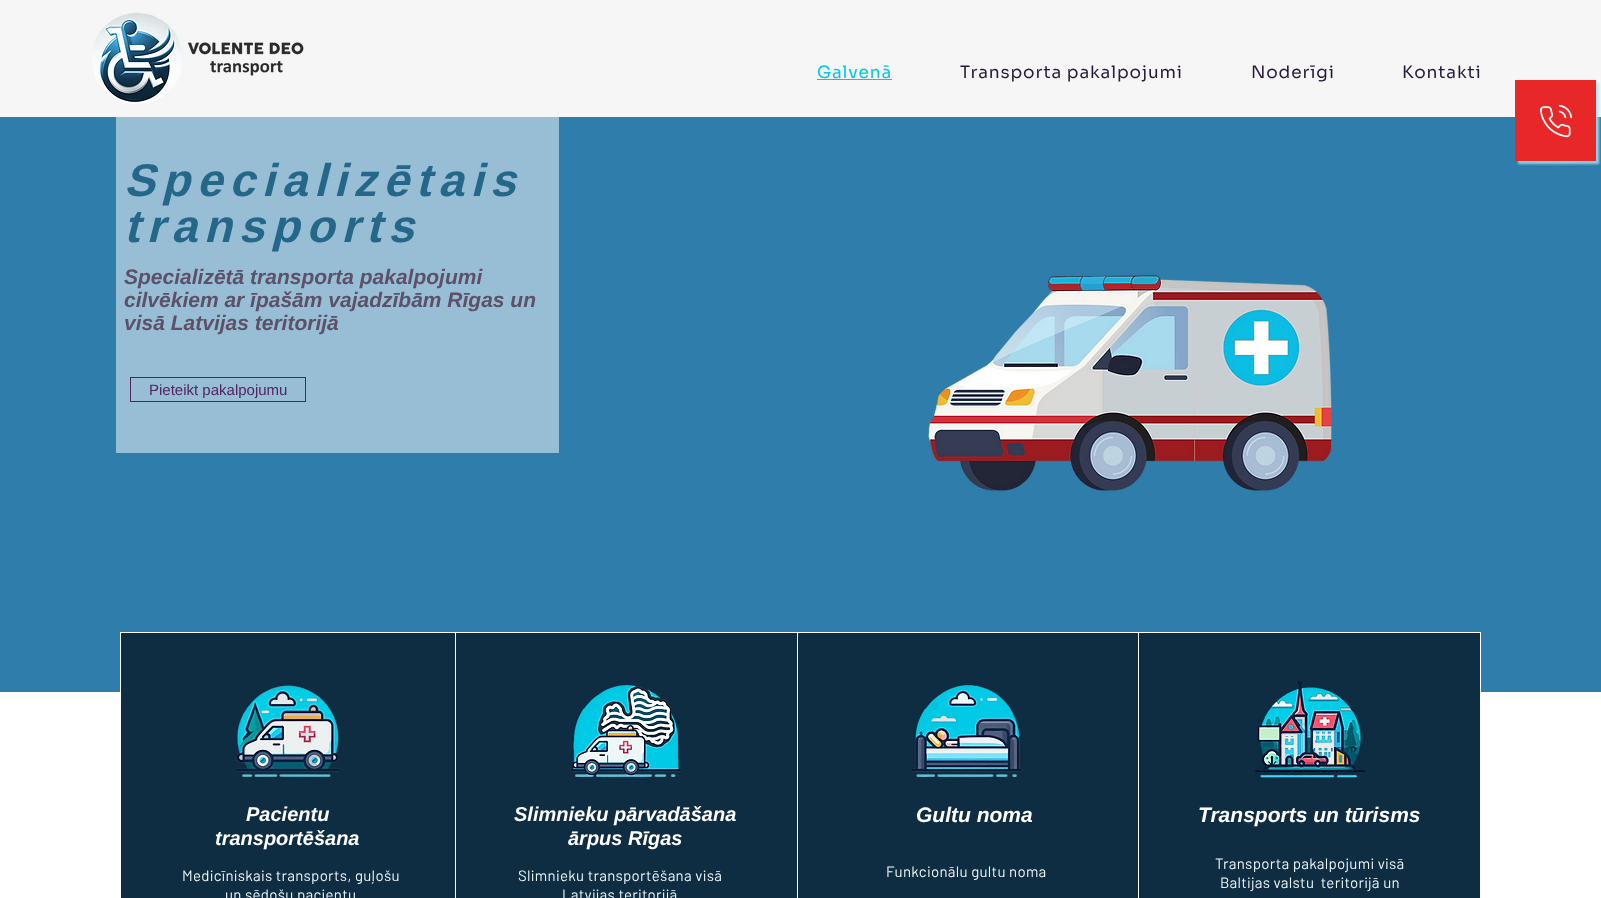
async function draw(canvas) {
  canvas.width = 1601;
  canvas.height = 898;
  const ctx = canvas.getContext('2d');
  ctx.miterLimit = 4;
  ctx.fontKerning = 'normal';
  function label(s, x, y, font, color) {
    ctx.font = font;
    ctx.fillStyle = color;
    ctx.fillText(s, x, y);
  }
  function rect(x, y, w, h, color) {
    ctx.fillStyle = color;
    ctx.fillRect(x, y, w, h);
  }
  async function image(src, x, y, w, h) {
    const img = new Image();
    img.src = src;
    await img.decode();
    ctx.drawImage(img, x, y, w, h);
  }

  rect(0, 0, 1601, 898, '#fff');
  rect(0, 0, 1601, 117, '#f6f6f6');
  await image('assets/img1.png', 92, 12, 212, 92);
  ctx.letterSpacing = '0.85px';
  label('Galvenā', 817, 78, '17px Sora', '#00c9e5');
  rect(817, 79, 75, 1, '#00c9e5');
  label('Transporta pakalpojumi', 960, 78, '17px Sora', '#281a39');
  label('Noderīgi', 1251, 78, '17px Sora', '#281a39');
  label('Kontakti', 1402, 78, '17px Sora', '#281a39');
  rect(0, 117, 1601, 575, '#2e7dab');
  ctx.fillStyle = '#ace5f2c9';
  ctx.filter = 'blur(1px)';
  ctx.beginPath();
  ctx.rect(1518, 83, 81, 81);
  ctx.fill();
  ctx.filter = 'none';
  ctx.fillStyle = '#ace5f2';
  ctx.filter = 'blur(12px)';
  ctx.beginPath();
  ctx.rect(1540, 105, 37, 37);
  ctx.fill();
  ctx.filter = 'none';
  rect(1515, 80, 81, 81, '#e82828');
  await image('assets/img2.png', 1540, 104, 32, 34);
  rect(116, 117, 443, 336, '#97bed5');
  ctx.letterSpacing = '6.9px';
  label('Specializētais', 124, 196, 'italic bold 46px Arimo', '#256789');
  label('transports', 124, 242, 'italic bold 46px Arimo', '#256789');
  ctx.letterSpacing = '0px';
  label('Specializētā transporta pakalpojumi', 124, 284, 'italic bold 21px "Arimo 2"', '#5c5168');
  label('cilvēkiem ar īpašām vajadzībām Rīgas un', 124, 307, 'italic bold 21px "Arimo 2"', '#5c5168');
  label('visā Latvijas teritorijā', 124, 330, 'italic bold 21px "Arimo 2"', '#5c5168');
  ctx.strokeStyle = '#532563';
  ctx.strokeRect(130.5, 377.5, 175, 24);
  label('Pieteikt pakalpojumu', 149, 395, '15px Liberation Sans', '#532563');
  await image('assets/img3.png', 928, 273, 404, 220);
  rect(120, 632, 1361, 60, '#fff');
  rect(121, 633, 334, 265, '#0e2d42');
  await image('assets/img4.png', 235, 685, 106, 92);
  label('Pacientu', 246, 821, 'italic bold 20px "Arimo 2"', '#fff');
  label('transportēšana', 215, 845, 'italic bold 20px "Arimo 2"', '#fff');
  ctx.letterSpacing = '0.3px';
  label('Medicīniskais transports, guļošu', 182, 881, '15px Barlow', '#ebf5f5');
  label('un sēdošu pacientu', 225, 900, '15px Barlow', '#ebf5f5');
  rect(456, 633, 341, 265, '#0e2d42');
  await image('assets/img5.png', 570, 684, 112, 93);
  ctx.letterSpacing = '0px';
  label('Slimnieku pārvadāšana', 514, 821, 'italic bold 20px "Arimo 2"', '#fff');
  label('ārpus Rīgas', 568, 845, 'italic bold 20px "Arimo 2"', '#fff');
  ctx.letterSpacing = '0.3px';
  label('Slimnieku transportēšana visā', 518, 881, '15px Barlow', '#ebf5f5');
  label('Latvijas teritorijā', 562, 900, '15px Barlow', '#ebf5f5');
  rect(798, 633, 340, 265, '#0e2d42');
  await image('assets/img6.png', 911, 685, 112, 92);
  ctx.letterSpacing = '0px';
  label('Gultu noma', 916, 822, 'italic bold 21px "Arimo 2"', '#fff');
  ctx.letterSpacing = '0.3px';
  label('Funkcionālu gultu noma', 886, 877, '15px Barlow', '#ebf5f5');
  rect(1139, 633, 341, 265, '#0e2d42');
  await image('assets/img7.png', 1255, 681, 110, 97);
  ctx.letterSpacing = '0px';
  label('Transports un tūrisms', 1198, 822, 'italic bold 21px "Arimo 2"', '#fff');
  ctx.letterSpacing = '0.3px';
  label('Transporta pakalpojumi visā', 1215, 869, '15px Barlow', '#ebf5f5');
  label('Baltijas valstu  teritorijā un', 1220, 888, '15px Barlow', '#ebf5f5');
}

draw(document.querySelector('canvas'));
